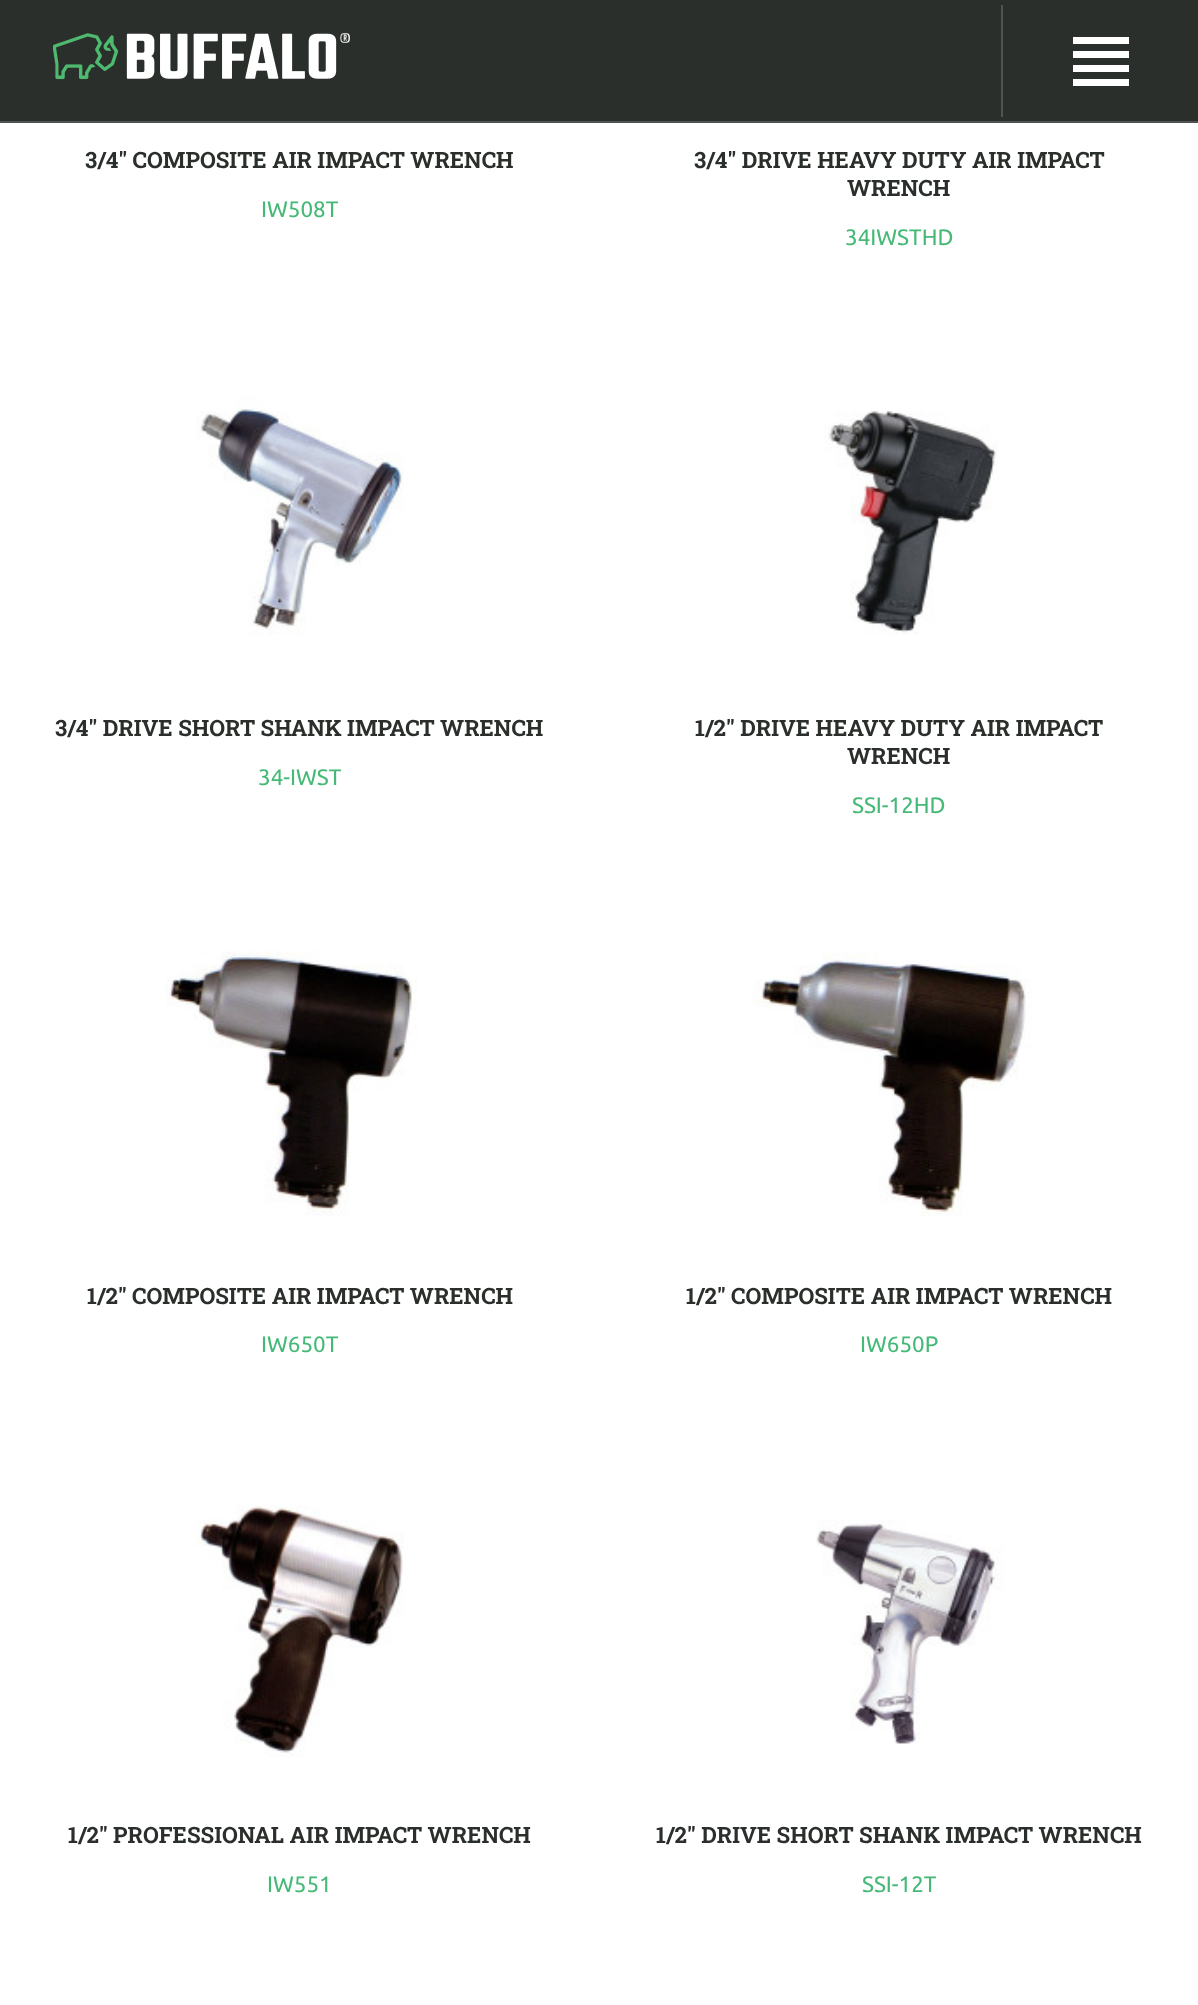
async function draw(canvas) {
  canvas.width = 1198;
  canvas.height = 2005;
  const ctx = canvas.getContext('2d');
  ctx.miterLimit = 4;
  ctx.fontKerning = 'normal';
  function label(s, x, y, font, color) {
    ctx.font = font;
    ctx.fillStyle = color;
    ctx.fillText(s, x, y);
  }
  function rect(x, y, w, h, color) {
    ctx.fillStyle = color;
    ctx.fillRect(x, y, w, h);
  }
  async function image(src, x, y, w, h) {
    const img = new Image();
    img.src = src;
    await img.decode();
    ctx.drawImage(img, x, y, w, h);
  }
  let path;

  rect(0, 0, 1198, 2005, '#fff');
  rect(0, 0, 1198, 121, '#2b2f2b');
  rect(0, 121, 1198, 2, '#515353');
  await image('assets/img1.png', 53, 33, 297, 47);
  rect(1001, 5, 2, 112, '#515353');
  ctx.fillStyle = '#fff';
  path = new Path2D('M1073 72H1129V65H1073ZM1073 86H1129V79H1073ZM1073 58H1129V51H1073ZM1073 37V44H1129V37Z');
  ctx.fill(path);
  label('3/4" COMPOSITE AIR IMPACT WRENCH', 85, 168, 'bold 22.4px Roboto Slab', '#2b2f2b');
  label('IW508T', 261, 217, '22.4px Ubuntu', '#46b977');
  label('3/4\'\' DRIVE HEAVY DUTY AIR IMPACT', 694, 168, 'bold 22.4px Roboto Slab', '#2b2f2b');
  label('WRENCH', 847, 196, 'bold 22.4px Roboto Slab', '#2b2f2b');
  label('34IWSTHD', 845, 245, '22.4px Ubuntu', '#46b977');
  await image('assets/img2.png', 196, 397, 208, 238);
  label('3/4\'\' DRIVE SHORT SHANK IMPACT WRENCH', 55, 736, 'bold 22.4px Roboto Slab', '#2b2f2b');
  label('34-IWST', 258, 785, '22.4px Ubuntu', '#46b977');
  await image('assets/img3.png', 824, 411, 175, 224);
  label('1/2\'\' DRIVE HEAVY DUTY AIR IMPACT', 695, 736, 'bold 22.4px Roboto Slab', '#2b2f2b');
  label('WRENCH', 847, 764, 'bold 22.4px Roboto Slab', '#2b2f2b');
  label('SSI-12HD', 852, 813, '22.4px Ubuntu', '#46b977');
  await image('assets/img4.png', 166, 950, 252, 267);
  label('1/2" COMPOSITE AIR IMPACT WRENCH', 87, 1304, 'bold 22.4px Roboto Slab', '#2b2f2b');
  label('IW650T', 261, 1352, '22.4px Ubuntu', '#46b977');
  await image('assets/img5.png', 753, 951, 279, 266);
  label('1/2" COMPOSITE AIR IMPACT WRENCH', 686, 1304, 'bold 22.4px Roboto Slab', '#2b2f2b');
  label('IW650P', 860, 1352, '22.4px Ubuntu', '#46b977');
  await image('assets/img6.png', 194, 1505, 210, 252);
  label('1/2" PROFESSIONAL AIR IMPACT WRENCH', 68, 1843, 'bold 22.4px Roboto Slab', '#2b2f2b');
  label('IW551', 267, 1892, '22.4px Ubuntu', '#46b977');
  await image('assets/img7.png', 816, 1520, 188, 224);
  label('1/2\'\' DRIVE SHORT SHANK IMPACT WRENCH', 656, 1843, 'bold 22.4px Roboto Slab', '#2b2f2b');
  label('SSI-12T', 862, 1892, '22.4px Ubuntu', '#46b977');
}

draw(document.querySelector('canvas'));
